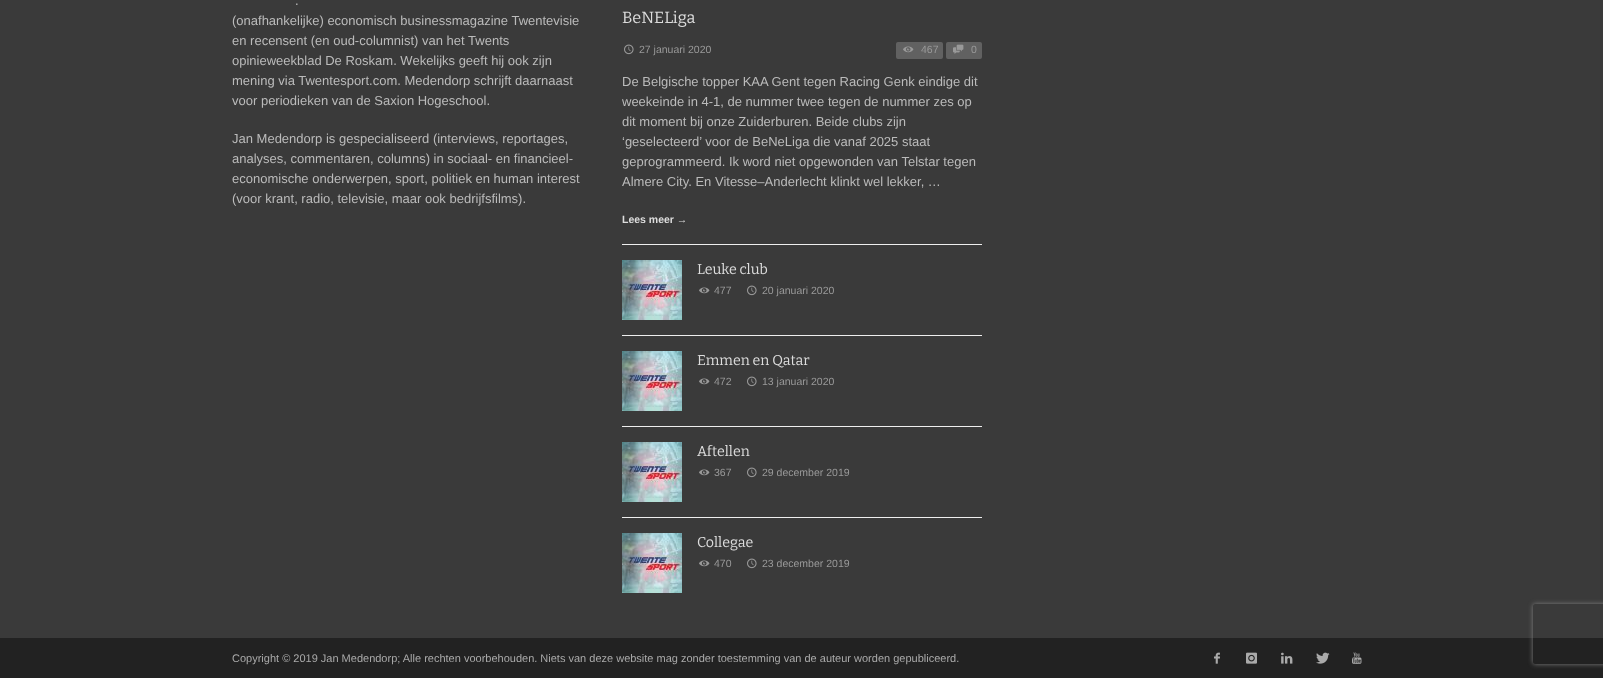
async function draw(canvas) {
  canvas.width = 1603;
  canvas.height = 678;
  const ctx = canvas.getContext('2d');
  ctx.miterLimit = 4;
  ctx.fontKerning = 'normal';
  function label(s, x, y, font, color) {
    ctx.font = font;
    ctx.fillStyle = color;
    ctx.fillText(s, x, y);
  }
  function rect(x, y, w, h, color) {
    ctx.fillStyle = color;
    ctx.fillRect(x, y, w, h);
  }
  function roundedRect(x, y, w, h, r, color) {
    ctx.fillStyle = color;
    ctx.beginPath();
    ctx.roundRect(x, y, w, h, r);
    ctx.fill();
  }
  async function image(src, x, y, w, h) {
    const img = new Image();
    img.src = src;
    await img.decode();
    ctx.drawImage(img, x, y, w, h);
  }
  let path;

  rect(0, 0, 1603, 678, '#3a3a3a');
  label('.', 295, 5, '13px Liberation Sans', '#bbb');
  label('(onafhankelijke) economisch businessmagazine Twentevisie', 232, 25, '13px Liberation Sans', '#bbb');
  label('en recensent (en oud-columnist) van het Twents', 232, 45, '13px Liberation Sans', '#bbb');
  label('opinieweekblad De Roskam. Wekelijks geeft hij ook zijn', 232, 65, '13px Liberation Sans', '#bbb');
  label('mening via Twentesport.com. Medendorp schrijft daarnaast', 232, 85, '13px Liberation Sans', '#bbb');
  label('voor periodieken van de Saxion Hogeschool.', 232, 105, '13px Liberation Sans', '#bbb');
  label('Jan Medendorp is gespecialiseerd (interviews, reportages,', 232, 143, '13px Liberation Sans', '#bbb');
  label('analyses, commentaren, columns) in sociaal- en financieel-', 232, 163, '13px Liberation Sans', '#bbb');
  label('economische onderwerpen, sport, politiek en human interest', 232, 183, '13px Liberation Sans', '#bbb');
  label('(voor krant, radio, televisie, maar ook bedrijfsfilms).', 232, 203, '13px Liberation Sans', '#bbb');
  label('BeNELiga', 622, 23, '16.25px Bitter', '#ddd');
  await image('assets/img1.png', 624, 44, 10, 11);
  label('27 januari 2020', 639, 53, '10.5px Liberation Sans', '#999');
  roundedRect(896, 42, 47, 17, 2, '#616161');
  await image('assets/img2.png', 903, 46, 11, 7);
  label('467', 921, 53, '10.5px Liberation Sans', '#999');
  roundedRect(946, 42, 36, 17, 2, '#616161');
  await image('assets/img3.png', 953, 44, 11, 10);
  label('0', 971, 53, '10.5px Liberation Sans', '#999');
  label('De Belgische topper KAA Gent tegen Racing Genk eindige dit', 622, 86, '13px Liberation Sans', '#bbb');
  label('weekeinde in 4-1, de nummer twee tegen de nummer zes op', 622, 106, '13px Liberation Sans', '#bbb');
  label('dit moment bij onze Zuiderburen. Beide clubs zijn', 622, 126, '13px Liberation Sans', '#bbb');
  label('‘geselecteerd’ voor de BeNeLiga die vanaf 2025 staat', 622, 146, '13px Liberation Sans', '#bbb');
  label('geprogrammeerd. Ik word niet opgewonden van Telstar tegen', 622, 166, '13px Liberation Sans', '#bbb');
  label('Almere City. En Vitesse–Anderlecht klinkt wel lekker, …', 622, 186, '13px Liberation Sans', '#bbb');
  label('Lees meer →', 622, 223, 'bold 10.5px Liberation Sans', '#ddd');
  rect(622, 244, 360, 1, '#eee');
  await image('assets/img4.png', 622, 260, 60, 60);
  label('Leuke club', 697, 274, '14.25px Bitter', '#ddd');
  await image('assets/img5.png', 699, 287, 11, 7);
  label('477', 714, 294, '10.5px Liberation Sans', '#999');
  await image('assets/img1.png', 747, 285, 10, 11);
  label('20 januari 2020', 762, 294, '10.5px Liberation Sans', '#999');
  rect(622, 335, 360, 1, '#eee');
  await image('assets/img4.png', 622, 351, 60, 60);
  label('Emmen en Qatar', 697, 365, '14.25px Bitter', '#ddd');
  await image('assets/img5.png', 699, 378, 11, 7);
  label('472', 714, 385, '10.5px Liberation Sans', '#999');
  await image('assets/img1.png', 747, 376, 10, 11);
  label('13 januari 2020', 762, 385, '10.5px Liberation Sans', '#999');
  rect(622, 426, 360, 1, '#eee');
  await image('assets/img4.png', 622, 442, 60, 60);
  label('Aftellen', 697, 456, '14.25px Bitter', '#ddd');
  await image('assets/img5.png', 699, 469, 11, 7);
  label('367', 714, 476, '10.5px Liberation Sans', '#999');
  await image('assets/img1.png', 747, 467, 10, 11);
  label('29 december 2019', 762, 476, '10.5px Liberation Sans', '#999');
  rect(622, 517, 360, 1, '#eee');
  await image('assets/img4.png', 622, 533, 60, 60);
  label('Collegae', 697, 547, '14.25px Bitter', '#ddd');
  await image('assets/img5.png', 699, 560, 11, 7);
  label('470', 714, 567, '10.5px Liberation Sans', '#999');
  await image('assets/img1.png', 747, 558, 10, 11);
  label('23 december 2019', 762, 567, '10.5px Liberation Sans', '#999');
  rect(0, 638, 1603, 40, '#222');
  label('Copyright © 2019 Jan Medendorp; Alle rechten voorbehouden. Niets van deze website mag zonder toestemming van de auteur worden gepubliceerd.', 232, 662, '11px Liberation Sans', '#aaa');
  await image('assets/img6.png', 1214, 652, 6, 12);
  await image('assets/img7.png', 1246, 652, 11, 12);
  await image('assets/img8.png', 1281, 652, 12, 12);
  await image('assets/img9.png', 1316, 652, 14, 12);
  await image('assets/img10.png', 1352, 652, 10, 12);
  ctx.save();
  path = new Path2D('M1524 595H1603V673H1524ZM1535 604H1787C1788 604 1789 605 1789 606V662C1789 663 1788 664 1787 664H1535C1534 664 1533 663 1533 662V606C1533 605 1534 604 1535 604Z');
  ctx.clip(path, 'evenodd');
  ctx.fillStyle = '#808080';
  ctx.filter = 'blur(2.5px)';
  ctx.beginPath();
  ctx.roundRect(1533, 604, 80, 60, 2);
  ctx.fill();
  ctx.filter = 'none';
  ctx.restore();
}

draw(document.querySelector('canvas'));
